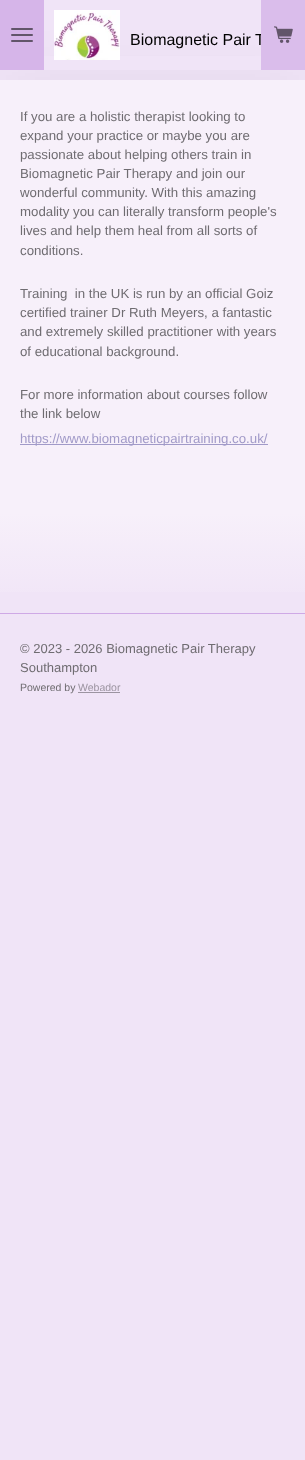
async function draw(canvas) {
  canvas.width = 305;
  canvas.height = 1460;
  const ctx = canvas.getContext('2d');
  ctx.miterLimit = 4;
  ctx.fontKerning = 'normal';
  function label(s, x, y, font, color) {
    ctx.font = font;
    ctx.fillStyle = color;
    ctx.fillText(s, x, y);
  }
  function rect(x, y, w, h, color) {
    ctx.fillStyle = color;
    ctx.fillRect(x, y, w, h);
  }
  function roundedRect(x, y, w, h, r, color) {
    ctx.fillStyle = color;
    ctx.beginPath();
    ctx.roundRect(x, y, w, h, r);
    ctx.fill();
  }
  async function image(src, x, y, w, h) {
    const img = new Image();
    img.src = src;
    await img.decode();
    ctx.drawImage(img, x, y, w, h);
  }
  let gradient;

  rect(0, 0, 305, 1460, '#f0e4f7');
  rect(0, 613, 305, 1, '#cfa9e6');
  ctx.fillStyle = '#0000000d';
  ctx.filter = 'blur(30px)';
  ctx.beginPath();
  ctx.rect(0, 80, 305, 443);
  ctx.fill();
  ctx.filter = 'none';
  rect(0, 0, 44, 70, '#d6b5e9');
  roundedRect(11, 34, 22, 2, 1, '#62556a');
  roundedRect(11, 28, 22, 2, 1, '#62556a');
  roundedRect(11, 40, 22, 2, 1, '#62556a');
  rect(44, 56, 217, 14, '#f0e4f7');
  await image('assets/img1.png', 54, 10, 66, 50);
  ctx.save();
  ctx.beginPath();
  ctx.rect(120, 10, 141, 50);
  ctx.clip();
  label('Biomagnetic Pair T', 130, 45, '16px Liberation Sans', '#000');
  ctx.restore();
  rect(261, 0, 44, 70, '#dabdeb');
  await image('assets/img2.png', 274, 26, 19, 17);
  rect(0, 80, 305, 433, '#f7f0fa');
  label('If you are a holistic therapist looking to', 20, 121, '13.25px Liberation Sans', '#6f6c71');
  label('expand your practice or maybe you are', 20, 140, '13.25px Liberation Sans', '#6f6c71');
  label('passionate about helping others train in', 20, 159, '13.25px Liberation Sans', '#6f6c71');
  label('Biomagnetic Pair Therapy and join our', 20, 178, '13.25px Liberation Sans', '#6f6c71');
  label('wonderful community. With this amazing', 20, 197, '13.25px Liberation Sans', '#6f6c71');
  label('modality you can literally transform people\'s', 20, 216, '13.25px Liberation Sans', '#6f6c71');
  label('lives and help them heal from all sorts of', 20, 235, '13.25px Liberation Sans', '#6f6c71');
  label('conditions.', 20, 255, '13.25px Liberation Sans', '#6f6c71');
  label('Training  in the UK is run by an official Goiz', 20, 298, '13.25px Liberation Sans', '#6f6c71');
  label('certified trainer Dr Ruth Meyers, a fantastic', 20, 317, '13.25px Liberation Sans', '#6f6c71');
  label('and extremely skilled practitioner with years', 20, 336, '13.25px Liberation Sans', '#6f6c71');
  label('of educational background.', 20, 356, '13.25px Liberation Sans', '#6f6c71');
  label('For more information about courses follow', 20, 399, '13.25px Liberation Sans', '#6f6c71');
  label('the link below', 20, 418, '13.25px Liberation Sans', '#6f6c71');
  rect(20, 444, 248, 1, '#a19ac8');
  label('https://www.biomagneticpairtraining.co.uk/', 20, 443, '13.25px Liberation Sans', '#a19ac8');
  gradient = ctx.createLinearGradient(153, 513, 153, 613);
  gradient.addColorStop(0, '#f7f0fa');
  gradient.addColorStop(1, '#f0e4f7');
  ctx.fillStyle = gradient;
  ctx.fillRect(0, 513, 305, 79);
  label('© 2023 - 2026 Biomagnetic Pair Therapy', 20, 653, '13px Liberation Sans', '#6f6c71');
  label('Southampton', 20, 672, '13px Liberation Sans', '#6f6c71');
  label('Powered by', 20, 691, '10.5px Liberation Sans', '#6f6c71');
  label('Webador', 78, 691, '10.5px Liberation Sans', '#9c94a1');
  rect(78, 692, 42, 1, '#9c94a1');
}

draw(document.querySelector('canvas'));
